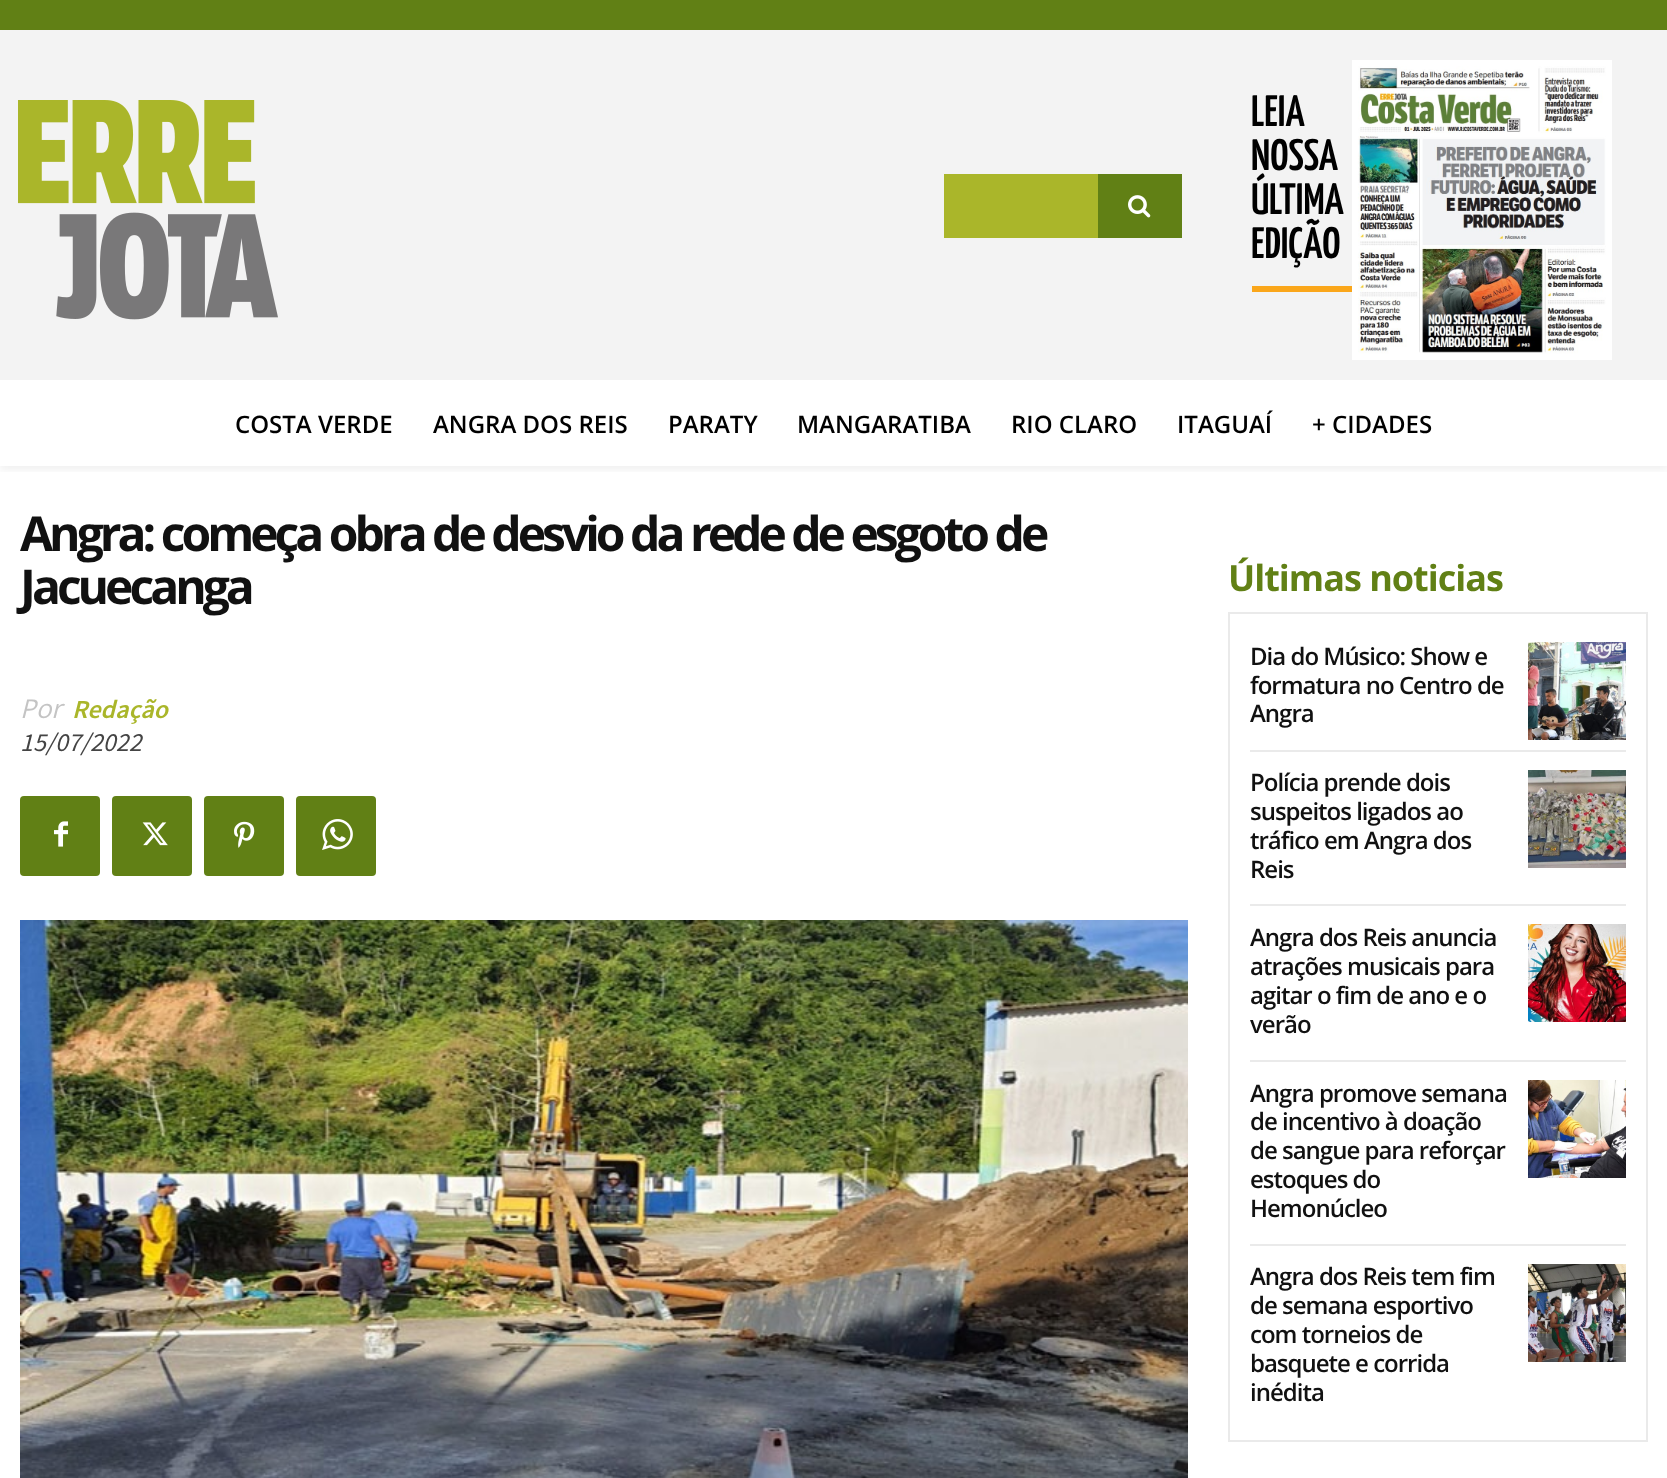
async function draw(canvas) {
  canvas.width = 1667;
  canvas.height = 1478;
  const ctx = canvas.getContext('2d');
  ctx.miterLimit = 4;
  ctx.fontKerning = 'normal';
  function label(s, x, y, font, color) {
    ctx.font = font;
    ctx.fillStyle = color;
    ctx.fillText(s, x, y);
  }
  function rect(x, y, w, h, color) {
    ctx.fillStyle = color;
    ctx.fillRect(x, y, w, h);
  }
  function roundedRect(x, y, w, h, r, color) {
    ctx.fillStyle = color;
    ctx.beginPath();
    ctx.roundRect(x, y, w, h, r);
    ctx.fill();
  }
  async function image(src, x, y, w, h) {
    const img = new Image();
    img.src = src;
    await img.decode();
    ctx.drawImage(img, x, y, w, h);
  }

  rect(0, 0, 1667, 1478, '#fff');
  rect(0, 30, 1667, 350, '#f3f3f3');
  rect(0, 0, 1667, 30, '#618015');
  await image('assets/img1.png', 18, 100, 260, 220);
  rect(944, 174, 154, 64, '#aab62a');
  rect(1098, 174, 84, 64, '#618015');
  await image('assets/img2.png', 1128, 195, 23, 23);
  label('LEIA', 1251, 126, '600 44px Yanone Kaffeesatz', '#000');
  label('NOSSA', 1251, 170, '600 44px Yanone Kaffeesatz', '#000');
  label('ÚLTIMA', 1251, 214, '600 44px Yanone Kaffeesatz', '#000');
  label('EDIÇÃO', 1251, 258, '600 44px Yanone Kaffeesatz', '#000');
  rect(1252, 286, 100, 6, '#faa61a');
  await image('assets/img3.png', 1352, 60, 260, 300);
  ctx.save();
  ctx.beginPath();
  ctx.rect(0, 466, 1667, 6);
  ctx.clip();
  ctx.fillStyle = '#0000000f';
  ctx.filter = 'blur(4px)';
  ctx.beginPath();
  ctx.rect(0, 384, 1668, 86);
  ctx.fill();
  ctx.filter = 'none';
  ctx.restore();
  label('COSTA VERDE', 235, 433, '600 24px Open Sans', '#000');
  label('ANGRA DOS REIS', 433, 433, '600 24px Open Sans', '#000');
  label('PARATY', 668, 433, '600 24px Open Sans', '#000');
  label('MANGARATIBA', 797, 433, '600 24px Open Sans', '#000');
  label('RIO CLARO', 1011, 433, '600 24px Open Sans', '#000');
  label('ITAGUAÍ', 1177, 433, '600 24px Open Sans', '#000');
  label('+ CIDADES', 1312, 433, '600 24px Open Sans', '#000');
  ctx.letterSpacing = '-4px';
  label('Angra: começa obra de desvio da rede de esgoto de', 20, 551, 'bold 48px Open Sans', '#111');
  label('Jacuecanga', 20, 604, 'bold 48px Open Sans', '#111');
  ctx.letterSpacing = '0px';
  label('Por', 20, 718, 'italic 26px Open Sans', '#c4c4c4');
  label('Redação', 72, 718, 'italic 600 26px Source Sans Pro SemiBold', '#aab62a');
  label('15/07/2022', 20, 751, 'italic 26px Source Sans Pro', '#444');
  roundedRect(20, 796, 80, 80, 4, '#618015');
  await image('assets/img4.png', 54, 821, 14, 26);
  roundedRect(112, 796, 80, 80, 4, '#618015');
  await image('assets/img5.png', 142, 822, 26, 24);
  roundedRect(204, 796, 80, 80, 4, '#618015');
  await image('assets/img6.png', 234, 821, 21, 27);
  roundedRect(296, 796, 80, 80, 4, '#618015');
  await image('assets/img7.png', 322, 819, 31, 31);
  await image('assets/img8.png', 20, 920, 1168, 558);
  ctx.letterSpacing = '-1px';
  label('Últimas noticias', 1228, 591, 'bold 36px Open Sans', '#618015');
  ctx.strokeStyle = '#eaeaea';
  ctx.lineWidth = 2;
  ctx.strokeRect(1229, 613, 418, 828);
  label('Dia do Músico: Show e', 1250, 665, '600 24px Open Sans', '#111');
  label('formatura no Centro de', 1250, 694, '600 24px Open Sans', '#111');
  label('Angra', 1250, 722, '600 24px Open Sans', '#111');
  await image('assets/img9.png', 1528, 642, 98, 98);
  rect(1250, 750, 376, 2, '#eaeaea');
  label('Polícia prende dois', 1250, 791, '600 24px Open Sans', '#111');
  label('suspeitos ligados ao', 1250, 820, '600 24px Open Sans', '#111');
  label('tráfico em Angra dos', 1250, 849, '600 24px Open Sans', '#111');
  label('Reis', 1250, 878, '600 24px Open Sans', '#111');
  await image('assets/img10.png', 1528, 770, 98, 98);
  rect(1250, 904, 376, 2, '#eaeaea');
  label('Angra dos Reis anuncia', 1250, 946, '600 24px Open Sans', '#111');
  label('atrações musicais para', 1250, 975, '600 24px Open Sans', '#111');
  label('agitar o fim de ano e o', 1250, 1004, '600 24px Open Sans', '#111');
  label('verão', 1250, 1033, '600 24px Open Sans', '#111');
  await image('assets/img11.png', 1528, 924, 98, 98);
  rect(1250, 1060, 376, 2, '#eaeaea');
  label('Angra promove semana', 1250, 1102, '600 24px Open Sans', '#111');
  label('de incentivo à doação', 1250, 1130, '600 24px Open Sans', '#111');
  label('de sangue para reforçar', 1250, 1159, '600 24px Open Sans', '#111');
  label('estoques do', 1250, 1188, '600 24px Open Sans', '#111');
  label('Hemonúcleo', 1250, 1217, '600 24px Open Sans', '#111');
  await image('assets/img12.png', 1528, 1080, 98, 98);
  rect(1250, 1244, 376, 2, '#eaeaea');
  label('Angra dos Reis tem fim', 1250, 1285, '600 24px Open Sans', '#111');
  label('de semana esportivo', 1250, 1314, '600 24px Open Sans', '#111');
  label('com torneios de', 1250, 1343, '600 24px Open Sans', '#111');
  label('basquete e corrida', 1250, 1372, '600 24px Open Sans', '#111');
  label('inédita', 1250, 1401, '600 24px Open Sans', '#111');
  await image('assets/img13.png', 1528, 1264, 98, 98);
}

draw(document.querySelector('canvas'));
